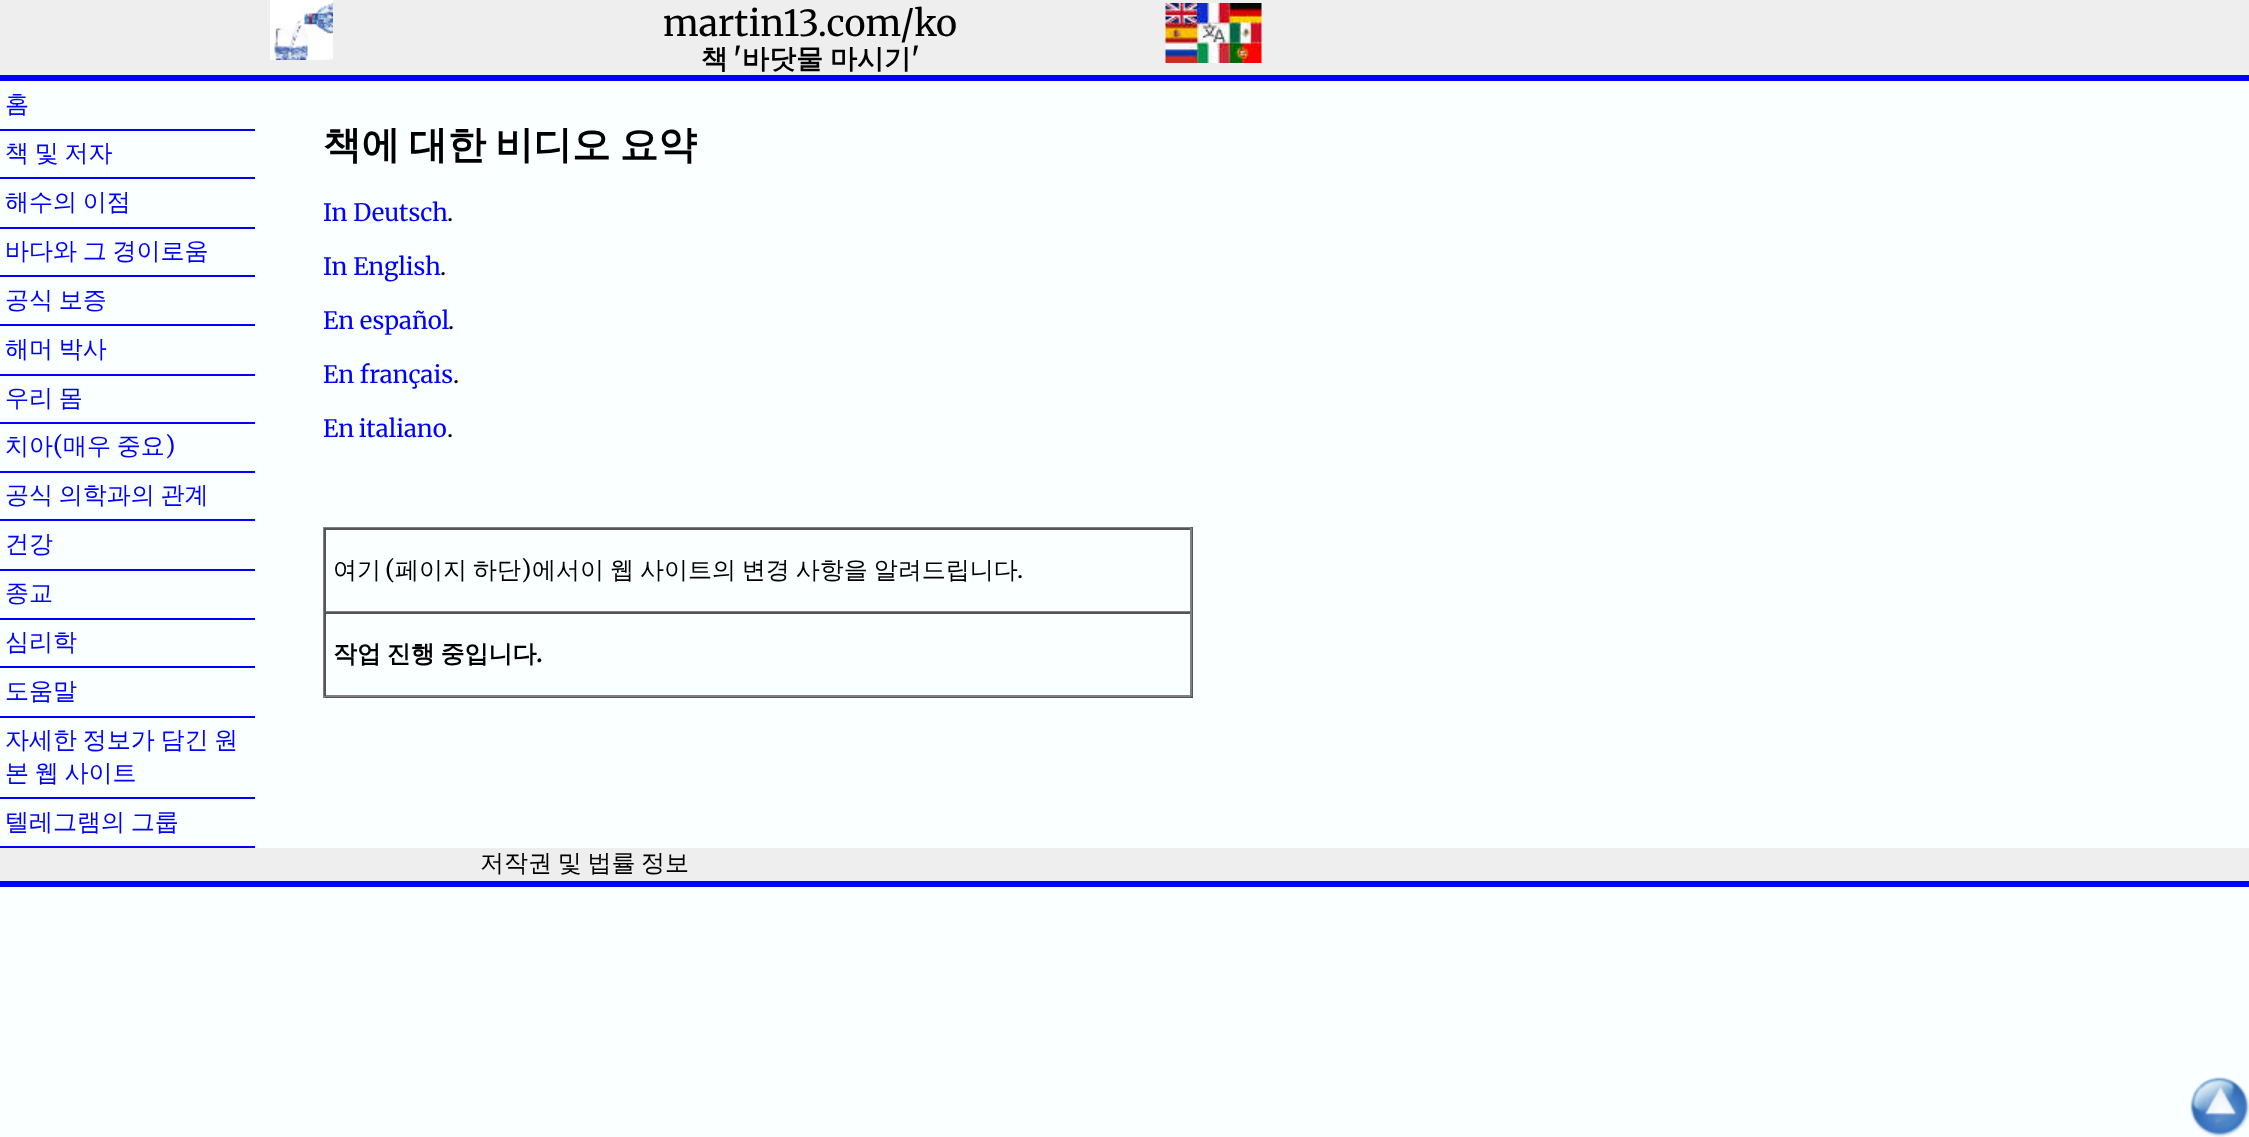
async function draw(canvas) {
  canvas.width = 2249;
  canvas.height = 1137;
  const ctx = canvas.getContext('2d');
  ctx.miterLimit = 4;
  ctx.fontKerning = 'normal';
  function label(s, x, y, font, color) {
    ctx.font = font;
    ctx.fillStyle = color;
    ctx.fillText(s, x, y);
  }
  function rect(x, y, w, h, color) {
    ctx.fillStyle = color;
    ctx.fillRect(x, y, w, h);
  }
  async function image(src, x, y, w, h) {
    const img = new Image();
    img.src = src;
    await img.decode();
    ctx.drawImage(img, x, y, w, h);
  }

  rect(0, 0, 2249, 1137, '#faffff');
  rect(0, 0, 2249, 75, '#eee');
  rect(0, 75, 2249, 6, '#00f');
  await image('assets/img1.png', 270, 0, 63, 60);
  label('martin13.com/ko', 663, 36, '36px Merriweather', '#000');
  label('책', 701, 68, 'bold 27px WenQuanYi Zen Hei', '#000');
  label('\'', 733, 68, 'bold 27px Merriweather', '#000');
  ctx.wordSpacing = '-1px';
  label('바닷물 마시기', 742, 68, 'bold 27px WenQuanYi Zen Hei', '#000');
  ctx.wordSpacing = '0px';
  label('\'', 911, 68, 'bold 27px Merriweather', '#000');
  await image('assets/img2.png', 1165, 3, 97, 60);
  rect(0, 129, 255, 2, '#00f');
  label('홈', 5, 112, '500 24px WenQuanYi Zen Hei', '#00f');
  rect(0, 177, 255, 2, '#00f');
  ctx.wordSpacing = '-1.5px';
  label('책 및 저자', 5, 161, '500 24px WenQuanYi Zen Hei', '#00f');
  rect(0, 227, 255, 2, '#00f');
  label('해수의 이점', 5, 210, '500 24px WenQuanYi Zen Hei', '#00f');
  rect(0, 275, 255, 2, '#00f');
  label('바다와 그 경이로움', 5, 259, '500 24px WenQuanYi Zen Hei', '#00f');
  rect(0, 324, 255, 2, '#00f');
  label('공식 보증', 5, 308, '500 24px WenQuanYi Zen Hei', '#00f');
  rect(0, 374, 255, 2, '#00f');
  label('해머 박사', 5, 357, '500 24px WenQuanYi Zen Hei', '#00f');
  rect(0, 422, 255, 2, '#00f');
  label('우리 몸', 5, 406, '500 24px WenQuanYi Zen Hei', '#00f');
  rect(0, 471, 255, 2, '#00f');
  ctx.wordSpacing = '0px';
  label('치아', 5, 454, '500 24px WenQuanYi Zen Hei', '#00f');
  label('(', 53, 454, '24px Merriweather', '#00f');
  ctx.wordSpacing = '-1.5px';
  label('매우 중요', 63, 454, '500 24px WenQuanYi Zen Hei', '#00f');
  ctx.wordSpacing = '0px';
  label(')', 165, 454, '24px Merriweather', '#00f');
  rect(0, 519, 255, 2, '#00f');
  ctx.wordSpacing = '-1.5px';
  label('공식 의학과의 관계', 5, 503, '500 24px WenQuanYi Zen Hei', '#00f');
  rect(0, 569, 255, 2, '#00f');
  ctx.wordSpacing = '0px';
  label('건강', 5, 552, '500 24px WenQuanYi Zen Hei', '#00f');
  rect(0, 618, 255, 2, '#00f');
  label('종교', 5, 601, '500 24px WenQuanYi Zen Hei', '#00f');
  rect(0, 666, 255, 2, '#00f');
  label('심리학', 5, 650, '500 24px WenQuanYi Zen Hei', '#00f');
  rect(0, 716, 255, 2, '#00f');
  label('도움말', 5, 699, '500 24px WenQuanYi Zen Hei', '#00f');
  rect(0, 797, 255, 2, '#00f');
  ctx.wordSpacing = '-1.5px';
  label('자세한 정보가 담긴 원', 5, 748, '500 24px WenQuanYi Zen Hei', '#00f');
  label('본 웹 사이트', 5, 781, '500 24px WenQuanYi Zen Hei', '#00f');
  rect(0, 846, 255, 2, '#00f');
  label('텔레그램의 그룹', 5, 830, '500 24px WenQuanYi Zen Hei', '#00f');
  ctx.wordSpacing = '-2.5px';
  label('책에 대한 비디오 요약', 323, 158, 'bold 38.5px WenQuanYi Zen Hei', '#000');
  ctx.wordSpacing = '0px';
  label('In Deutsch', 323, 221, '24px Merriweather', '#00f');
  label('.', 447, 221, '24px Merriweather', '#000');
  label('In English', 323, 275, '24px Merriweather', '#00f');
  label('.', 440, 275, '24px Merriweather', '#000');
  label('En español', 323, 329, '24px Merriweather', '#00f');
  label('.', 448, 329, '24px Merriweather', '#000');
  label('En français', 323, 383, '24px Merriweather', '#00f');
  label('.', 453, 383, '24px Merriweather', '#000');
  ctx.wordSpacing = '-1px';
  label('En italiano', 323, 437, '24px Merriweather', '#00f');
  ctx.wordSpacing = '0px';
  label('.', 447, 437, '24px Merriweather', '#000');
  rect(323, 527, 870, 1, '#808080');
  rect(1191, 527, 2, 171, '#555');
  rect(323, 696, 870, 2, '#555');
  rect(323, 527, 2, 171, '#808080');
  rect(324, 528, 867, 2, '#555');
  rect(1190, 528, 2, 84, '#808080');
  rect(324, 611, 867, 1, '#808080');
  rect(324, 528, 2, 84, '#555');
  label('여기', 333, 578, '500 24px WenQuanYi Zen Hei', '#000');
  label('(', 385, 578, '24px Merriweather', '#000');
  ctx.wordSpacing = '-1.25px';
  label('페이지 하단', 395, 578, '500 24px WenQuanYi Zen Hei', '#000');
  ctx.wordSpacing = '0px';
  label(')', 521, 578, '24px Merriweather', '#000');
  ctx.wordSpacing = '-1.25px';
  label('에서이 웹 사이트의 변경 사항을 알려드립니다', 532, 578, '500 24px WenQuanYi Zen Hei', '#000');
  ctx.wordSpacing = '0px';
  label('.', 1017, 578, '24px Merriweather', '#000');
  rect(324, 612, 867, 2, '#555');
  rect(1190, 612, 2, 84, '#808080');
  rect(324, 695, 867, 2, '#808080');
  rect(324, 612, 2, 84, '#555');
  ctx.wordSpacing = '-1.5px';
  label('작업 진행 중입니다', 333, 662, 'bold 24px WenQuanYi Zen Hei', '#000');
  ctx.wordSpacing = '0px';
  label('.', 536, 662, 'bold 24px Merriweather', '#000');
  rect(0, 848, 2249, 33, '#eee');
  rect(0, 881, 2249, 6, '#00f');
  ctx.wordSpacing = '-1.5px';
  label('저작권 및 법률 정보', 480, 871, '500 24px WenQuanYi Zen Hei', '#000');
  await image('assets/img3.png', 2190, 1077, 59, 60);
}

draw(document.querySelector('canvas'));
